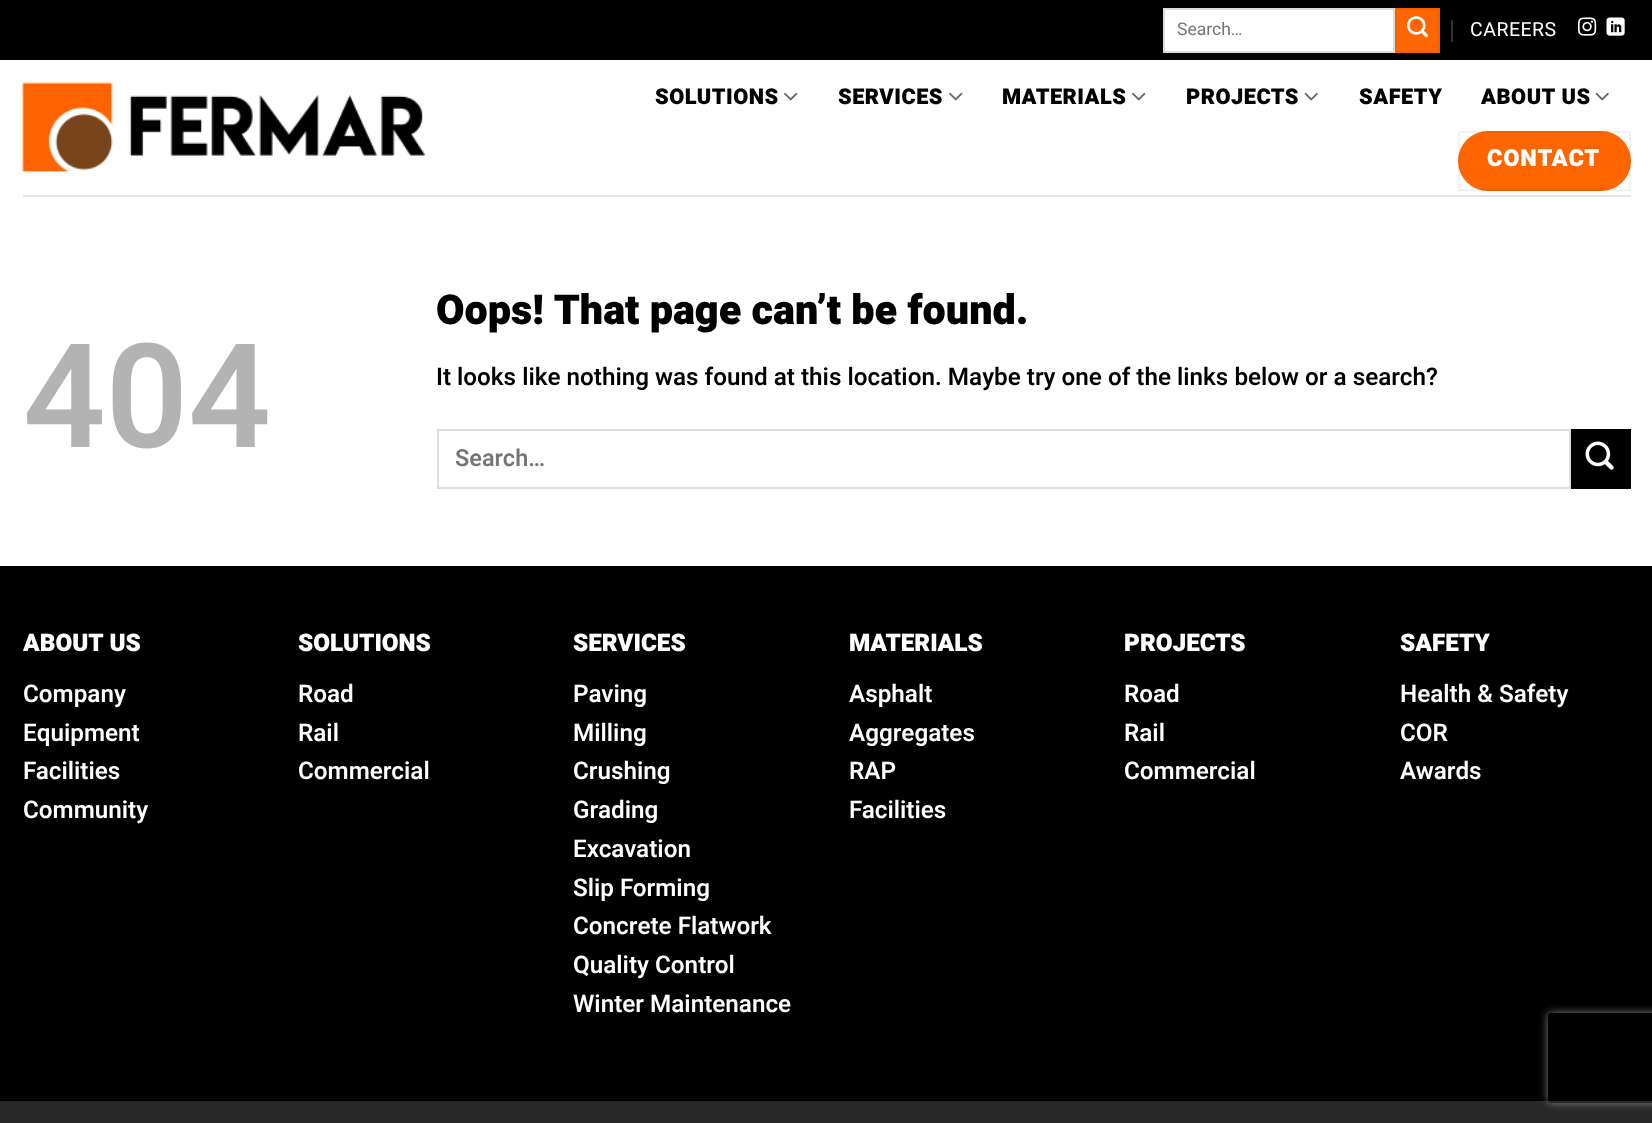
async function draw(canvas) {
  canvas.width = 1652;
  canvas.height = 1123;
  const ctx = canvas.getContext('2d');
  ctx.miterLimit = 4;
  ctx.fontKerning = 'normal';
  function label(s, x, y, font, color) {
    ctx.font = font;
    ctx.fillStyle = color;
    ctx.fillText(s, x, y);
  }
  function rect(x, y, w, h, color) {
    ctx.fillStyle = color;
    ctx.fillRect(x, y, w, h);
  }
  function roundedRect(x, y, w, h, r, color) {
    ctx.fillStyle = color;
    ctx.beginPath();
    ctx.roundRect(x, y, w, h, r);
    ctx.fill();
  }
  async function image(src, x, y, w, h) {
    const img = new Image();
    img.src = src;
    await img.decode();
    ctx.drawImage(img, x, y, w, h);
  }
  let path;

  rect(0, 0, 1652, 1123, '#fff');
  rect(0, 0, 1652, 60, '#000');
  ctx.fillStyle = '#fff';
  ctx.beginPath();
  ctx.rect(1164, 9, 230, 43);
  ctx.fill();
  ctx.strokeStyle = '#ddd';
  ctx.lineWidth = 2;
  ctx.stroke();
  label('Search…', 1177, 35, '17.5px Heebo', '#757575');
  ctx.fillStyle = '#f60';
  ctx.beginPath();
  ctx.rect(1396, 9, 43, 43);
  ctx.fill();
  ctx.strokeStyle = '#f26100';
  ctx.stroke();
  await image('assets/img1.png', 1407, 16, 22, 22);
  rect(1451, 20, 2, 22, '#333');
  ctx.letterSpacing = '0.5px';
  label('CAREERS', 1470, 36, '19.5px Heebo', '#fff');
  await image('assets/img2.png', 1578, 17, 19, 19);
  await image('assets/img3.png', 1606, 17, 19, 19);
  await image('assets/img4.png', 22, 82, 404, 91);
  label('SOLUTIONS', 655, 104, '900 21.75px Heebo', '#000');
  await image('assets/img5.png', 784, 92, 14, 9);
  label('SERVICES', 838, 104, '900 21.75px Heebo', '#000');
  await image('assets/img5.png', 949, 92, 14, 9);
  label('MATERIALS', 1002, 104, '900 21.75px Heebo', '#000');
  await image('assets/img5.png', 1132, 92, 14, 9);
  label('PROJECTS', 1186, 104, '900 21.75px Heebo', '#000');
  await image('assets/img6.png', 1304, 92, 14, 9);
  label('SAFETY', 1359, 104, '900 21.75px Heebo', '#000');
  label('ABOUT US', 1481, 104, '900 21.75px Heebo', '#000');
  await image('assets/img6.png', 1595, 92, 14, 9);
  roundedRect(1458, 131, 173, 60, 30, '#f60');
  ctx.strokeStyle = '#0000000d';
  ctx.strokeRect(1459, 132, 171, 58);
  ctx.letterSpacing = '0.75px';
  label('CONTACT', 1487, 166, '900 23.5px Heebo', '#fff');
  rect(23, 195, 1608, 2, '#e6e6e6');
  ctx.letterSpacing = '0px';
  label('404', 23, 447, '600 145px Heebo', '#b3b3b3');
  label('Oops! That page can’t be found.', 436, 324, '900 41.25px Heebo', '#000');
  label('It looks like nothing was found at this location. Maybe try one of the links below or a search?', 436, 385, '600 24.25px Heebo', '#000');
  ctx.strokeStyle = '#ddd';
  ctx.strokeRect(438, 430, 1132, 58);
  label('Search…', 455, 466, '600 23.5px Heebo', '#757575');
  rect(1571, 429, 60, 60, '#000');
  await image('assets/img7.png', 1585, 441, 29, 29);
  rect(0, 566, 1652, 535, '#000');
  label('ABOUT US', 23, 651, '900 24.25px Heebo', '#fff');
  label('Company', 23, 702, '600 24.25px Heebo', '#fff');
  label('Equipment', 23, 741, '600 24.25px Heebo', '#fff');
  label('Facilities', 23, 779, '600 24.25px Heebo', '#fff');
  label('Community', 23, 818, '600 24.25px Heebo', '#fff');
  label('SOLUTIONS', 298, 651, '900 24.25px Heebo', '#fff');
  label('Road', 298, 702, '600 24.25px Heebo', '#fff');
  label('Rail', 298, 741, '600 24.25px Heebo', '#fff');
  label('Commercial', 298, 779, '600 24.25px Heebo', '#fff');
  label('SERVICES', 573, 651, '900 24.25px Heebo', '#fff');
  label('Paving', 573, 702, '600 24.25px Heebo', '#fff');
  label('Milling', 573, 741, '600 24.25px Heebo', '#fff');
  label('Crushing', 573, 779, '600 24.25px Heebo', '#fff');
  label('Grading', 573, 818, '600 24.25px Heebo', '#fff');
  label('Excavation', 573, 857, '600 24.25px Heebo', '#fff');
  label('Slip Forming', 573, 896, '600 24.25px Heebo', '#fff');
  label('Concrete Flatwork', 573, 934, '600 24.25px Heebo', '#fff');
  label('Quality Control', 573, 973, '600 24.25px Heebo', '#fff');
  label('Winter Maintenance', 573, 1012, '600 24.25px Heebo', '#fff');
  label('MATERIALS', 849, 651, '900 24.25px Heebo', '#fff');
  label('Asphalt', 849, 702, '600 24.25px Heebo', '#fff');
  label('Aggregates', 849, 741, '600 24.25px Heebo', '#fff');
  label('RAP', 849, 779, '600 24.25px Heebo', '#fff');
  label('Facilities', 849, 818, '600 24.25px Heebo', '#fff');
  label('PROJECTS', 1124, 651, '900 24.25px Heebo', '#fff');
  label('Road', 1124, 702, '600 24.25px Heebo', '#fff');
  label('Rail', 1124, 741, '600 24.25px Heebo', '#fff');
  label('Commercial', 1124, 779, '600 24.25px Heebo', '#fff');
  label('SAFETY', 1400, 651, '900 24.25px Heebo', '#fff');
  label('Health & Safety', 1400, 702, '600 24.25px Heebo', '#fff');
  label('COR', 1400, 741, '600 24.25px Heebo', '#fff');
  label('Awards', 1400, 779, '600 24.25px Heebo', '#fff');
  rect(0, 1101, 1652, 22, '#282828');
  ctx.save();
  path = new Path2D('M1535 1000H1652V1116H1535ZM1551 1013H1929C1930.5 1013 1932 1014.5 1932 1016V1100C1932 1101.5 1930.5 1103 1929 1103H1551C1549.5 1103 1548 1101.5 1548 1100V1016C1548 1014.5 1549.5 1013 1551 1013Z');
  ctx.clip(path, 'evenodd');
  ctx.fillStyle = '#808080';
  ctx.filter = 'blur(4px)';
  ctx.beginPath();
  ctx.roundRect(1548, 1013, 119, 90, 3);
  ctx.fill();
  ctx.filter = 'none';
  ctx.restore();
}

draw(document.querySelector('canvas'));
